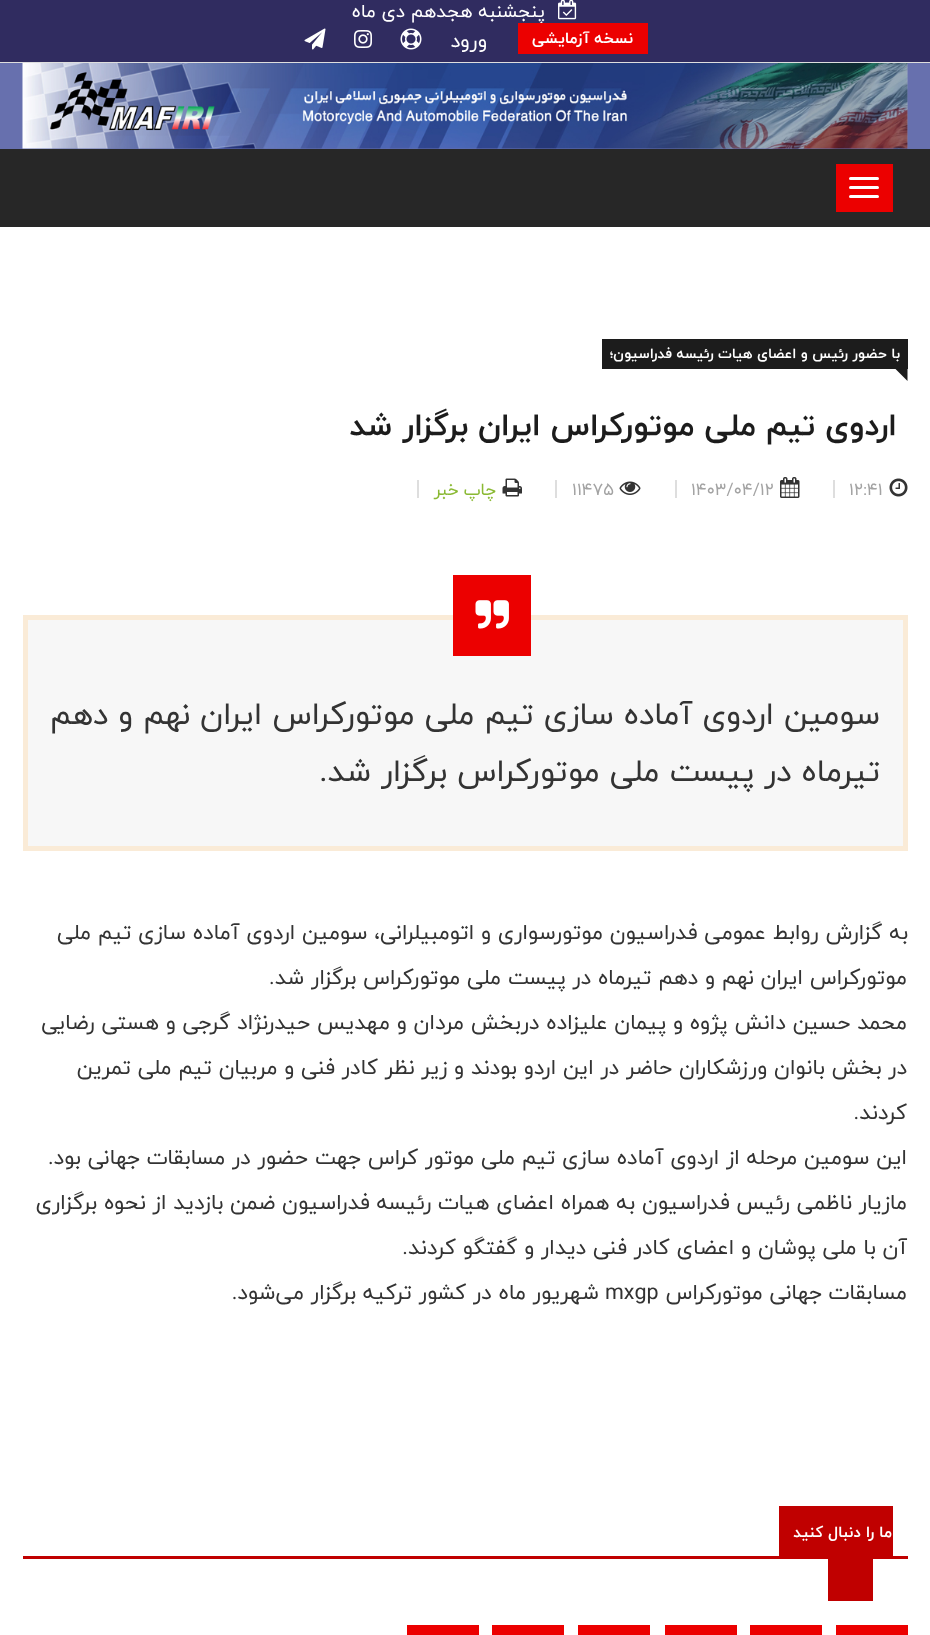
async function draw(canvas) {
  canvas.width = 930;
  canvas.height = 1635;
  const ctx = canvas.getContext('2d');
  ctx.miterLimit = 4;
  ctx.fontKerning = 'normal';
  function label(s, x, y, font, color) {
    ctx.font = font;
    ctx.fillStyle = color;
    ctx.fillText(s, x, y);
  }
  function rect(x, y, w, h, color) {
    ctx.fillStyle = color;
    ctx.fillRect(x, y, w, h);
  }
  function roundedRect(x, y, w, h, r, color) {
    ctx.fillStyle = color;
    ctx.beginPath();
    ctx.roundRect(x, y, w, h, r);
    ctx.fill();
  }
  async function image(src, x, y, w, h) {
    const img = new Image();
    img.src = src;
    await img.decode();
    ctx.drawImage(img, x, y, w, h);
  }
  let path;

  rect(0, 0, 930, 1635, '#fff');
  rect(0, 0, 930, 62, '#302c60');
  rect(0, 62, 930, 1, '#dedede');
  await image('assets/img1.png', 558, 0, 19, 20);
  ctx.direction = 'rtl';
  label('پنجشنبه هجدهم دی ماه', 545, 17, '19.5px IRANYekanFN', '#fff');
  rect(518, 23, 130, 31, '#ec0000');
  label('نسخه آزمایشی', 633, 43, 'bold 16.5px IRANYekanFN', '#fff');
  label('ورود', 487, 47, '21px IRANYekanFN', '#fff');
  await image('assets/img2.png', 400, 28, 22, 22);
  await image('assets/img3.png', 354, 30, 18, 18);
  await image('assets/img4.png', 304, 28, 22, 22);
  rect(0, 63, 930, 86, '#6770ae');
  await image('assets/img5.png', 22, 63, 886, 86);
  rect(0, 149, 930, 78, '#272727');
  rect(836, 164, 57, 48, '#ec0000');
  roundedRect(849, 177, 30, 3, 1.5, '#fff');
  roundedRect(849, 186, 30, 3, 1.5, '#fff');
  roundedRect(849, 195, 30, 3, 1.5, '#fff');
  rect(602, 339, 306, 30, '#1c1c1c');
  label('با حضور رئیس و اعضای هیات رئیسه فدراسیون؛', 900, 358, 'bold 15px IRANYekanFN', '#fff');
  ctx.fillStyle = '#1c1c1c';
  path = new Path2D('M895.5 369H907.5V381Z');
  ctx.fill(path);
  label('اردوی تیم ملی موتورکراس ایران برگزار شد', 897, 435, 'bold 33px IRANYekanFN', '#1c1c1c');
  await image('assets/img6.png', 889, 478, 19, 19);
  rect(833, 480, 2, 18, '#dedede');
  ctx.direction = 'ltr';
  label('12:41', 849, 495, '18px IRANYekanFN', '#a3a3a3');
  await image('assets/img7.png', 780, 477, 20, 21);
  rect(675, 480, 2, 18, '#dedede');
  label('1403/04/12', 691, 495, '18px IRANYekanFN', '#a3a3a3');
  await image('assets/img8.png', 619, 481, 22, 14);
  rect(555, 480, 2, 18, '#dedede');
  label('11475', 572, 495, '18px IRANYekanFN', '#a3a3a3');
  await image('assets/img9.png', 502, 478, 20, 19);
  rect(417, 480, 2, 18, '#dedede');
  ctx.direction = 'rtl';
  label('چاپ خبر', 496, 495, '18px IRANYekanFN', '#8ab933');
  ctx.fillStyle = '#f7f7f7';
  ctx.beginPath();
  ctx.rect(25.5, 617.5, 880, 231);
  ctx.fill();
  ctx.strokeStyle = '#faebd7';
  ctx.lineWidth = 5;
  ctx.stroke();
  rect(453, 575, 78, 81, '#ec0000');
  await image('assets/img10.png', 475, 600, 34, 29);
  label('سومین اردوی آماده سازی تیم ملی موتورکراس ایران نهم و دهم', 880, 724, '33px IRANYekanFN', '#333');
  label('تیرماه در پیست ملی موتورکراس برگزار شد.', 880, 781, '33px IRANYekanFN', '#333');
  label('به گزارش روابط عمومی فدراسیون موتورسواری و اتومبیلرانی، سومین اردوی آماده سازی تیم ملی', 908, 939, '22.5px IRANYekanFN', '#333');
  label('موتورکراس ایران نهم و دهم تیرماه در پیست ملی موتورکراس برگزار شد.', 907, 984, '22.5px IRANYekanFN', '#333');
  label('محمد حسین دانش پژوه و پیمان علیزاده دربخش مردان و مهدیس حیدرنژاد گرجی و هستی رضایی', 907, 1029, '22.5px IRANYekanFN', '#333');
  label('در بخش بانوان ورزشکاران حاضر در این اردو بودند و زیر نظر کادر فنی و مربیان تیم ملی تمرین', 907, 1074, '22.5px IRANYekanFN', '#333');
  label('کردند.', 907, 1119, '22.5px IRANYekanFN', '#333');
  label('این سومین مرحله از اردوی آماده سازی تیم ملی موتور کراس جهت حضور در مسابقات جهانی بود.', 907, 1164, '22.5px IRANYekanFN', '#333');
  label('مازیار ناظمی رئیس فدراسیون به همراه اعضای هیات رئیسه فدراسیون ضمن بازدید از نحوه برگزاری', 907, 1209, '22.5px IRANYekanFN', '#333');
  label('آن با ملی پوشان و اعضای کادر فنی دیدار و گفتگو کردند.', 907, 1254, '22.5px IRANYekanFN', '#333');
  label('مسابقات جهانی موتورکراس', 907, 1299, '22.5px IRANYekanFN', '#333');
  ctx.direction = 'ltr';
  label('mxgp', 605, 1299, '22.5px IRANYekanFN', '#333');
  ctx.direction = 'rtl';
  label('شهریور ماه در کشور ترکیه برگزار می‌شود.', 599, 1299, '22.5px IRANYekanFN', '#333');
  rect(23, 1556, 885, 3, '#c00000');
  rect(779, 1506, 114, 50, '#c00000');
  label('ما را دنبال کنید', 892, 1537, 'bold 16.5px IRANYekanFN', '#fff');
  rect(828, 1559, 45, 42, '#c00000');
  rect(836, 1625, 72, 10, '#ec0000');
  rect(750, 1625, 72, 10, '#ec0000');
  rect(665, 1625, 72, 10, '#ec0000');
  rect(578, 1625, 72, 10, '#ec0000');
  rect(492, 1625, 72, 10, '#ec0000');
  rect(407, 1625, 72, 10, '#ec0000');
}

draw(document.querySelector('canvas'));
